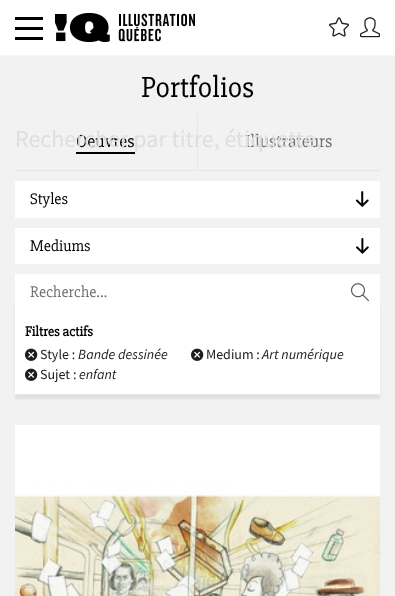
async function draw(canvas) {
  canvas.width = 395;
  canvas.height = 596;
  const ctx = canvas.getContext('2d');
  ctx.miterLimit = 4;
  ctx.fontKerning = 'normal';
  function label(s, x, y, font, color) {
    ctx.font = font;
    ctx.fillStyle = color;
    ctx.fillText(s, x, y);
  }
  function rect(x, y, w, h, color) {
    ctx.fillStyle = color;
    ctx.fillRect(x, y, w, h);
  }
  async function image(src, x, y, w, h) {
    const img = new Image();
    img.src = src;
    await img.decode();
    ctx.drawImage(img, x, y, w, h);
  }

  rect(0, 0, 395, 596, '#f3f2f2');
  rect(0, 0, 395, 55, '#fff');
  rect(0, 55, 395, 1, '#f7f7f7');
  rect(15, 27, 28, 3, '#000');
  rect(15, 17, 28, 3, '#000');
  rect(15, 37, 28, 3, '#000');
  await image('assets/img1.png', 55, 12, 140, 31);
  await image('assets/img2.png', 329, 17, 20, 20);
  await image('assets/img3.png', 360, 17, 20, 21);
  label('Portfolios', 141, 97, '30px "Slabo 27px"', '#000');
  rect(15, 170, 365, 1, '#e7e6e6');
  rect(197, 114, 1, 56, '#e7e6e6');
  label('Oeuvres', 76, 147, '18px "Slabo 27px"', '#000');
  rect(76, 152, 59, 2, '#000');
  label('Illustrateurs', 245, 147, '18px "Slabo 27px"', '#717171');
  rect(15, 181, 365, 37, '#fff');
  label('Styles', 30, 204, '16px "Slabo 27px"', '#000');
  await image('assets/img4.png', 355, 191, 14, 16);
  rect(15, 228, 365, 36, '#fff');
  label('Mediums', 30, 251, '16px "Slabo 27px"', '#000');
  await image('assets/img5.png', 356, 238, 13, 16);
  ctx.fillStyle = '#00000012';
  ctx.filter = 'blur(1px)';
  ctx.beginPath();
  ctx.rect(15, 304, 365, 95);
  ctx.fill();
  ctx.filter = 'none';
  rect(15, 274, 365, 120, '#fff');
  label('Recherche...', 30, 297, '16px "Slabo 27px"', '#717171');
  await image('assets/img6.png', 351, 283, 18, 19);
  rect(15, 394, 365, 1, '#e7e6e6');
  label('Filtres actifs', 25, 336, 'bold 14px "Slabo 27px"', '#000');
  await image('assets/img7.png', 25, 348, 13, 13);
  label('Style :', 40, 359, '14px Source Sans Pro', '#1c1c1c');
  label('Bande dessinée', 78, 359, 'italic 14px Source Sans Pro', '#1c1c1c');
  await image('assets/img7.png', 191, 348, 13, 13);
  label('Medium :', 206, 359, '14px Source Sans Pro', '#1c1c1c');
  label('Art numérique', 262, 359, 'italic 14px Source Sans Pro', '#1c1c1c');
  await image('assets/img7.png', 25, 368, 13, 13);
  label('Sujet :', 40, 379, '14px Source Sans Pro', '#1c1c1c');
  label('enfant', 79, 379, 'italic 14px Source Sans Pro', '#1c1c1c');
  rect(15, 425, 365, 58, '#fff');
  await image('assets/img8.png', 15, 483, 365, 113);
  label('Rechercher par titre, étiquette,', 15, 147, '24px Source Sans Pro', '#dfdede');
}

draw(document.querySelector('canvas'));
